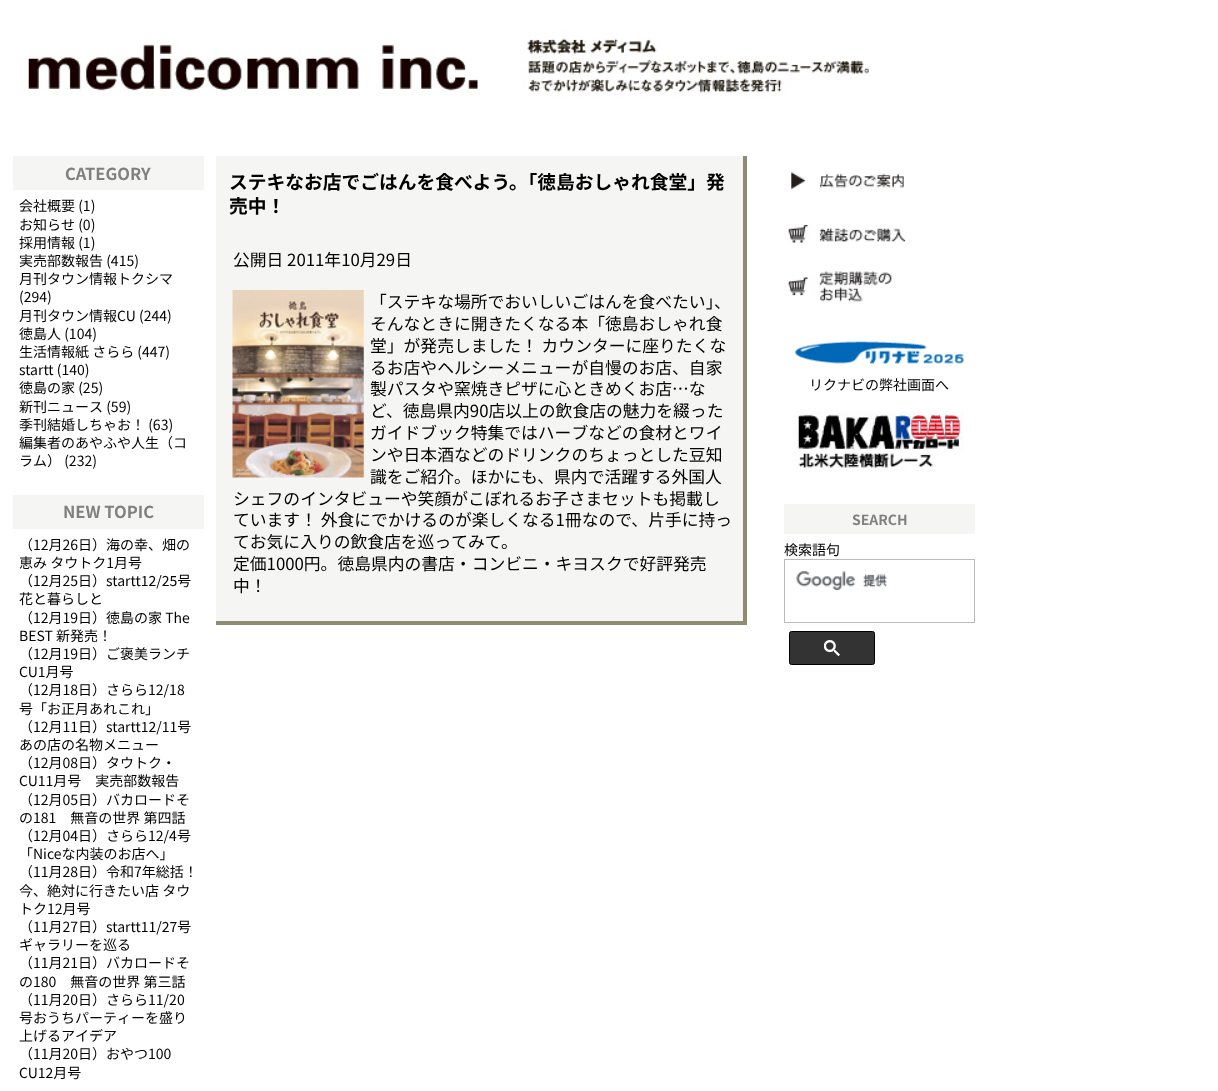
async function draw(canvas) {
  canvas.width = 1218;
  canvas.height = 1091;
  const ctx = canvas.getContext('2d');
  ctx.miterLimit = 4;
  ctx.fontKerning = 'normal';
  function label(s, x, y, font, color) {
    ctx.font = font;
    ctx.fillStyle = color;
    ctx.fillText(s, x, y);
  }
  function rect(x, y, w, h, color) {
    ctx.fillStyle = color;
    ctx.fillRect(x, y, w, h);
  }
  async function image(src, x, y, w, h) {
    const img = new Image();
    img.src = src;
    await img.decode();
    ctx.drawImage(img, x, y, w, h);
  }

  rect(0, 0, 1218, 1091, '#fff');
  await image('assets/img1.png', 28, 30, 841, 74);
  rect(13, 156, 191, 34, '#f5f5f4');
  label('CATEGORY', 65, 180, 'bold 16.5px Noto Sans JP', '#808080');
  label('会社概要 (1)', 19, 211, '14px Noto Sans JP', '#000');
  label('お知らせ (0)', 19, 230, '14px Noto Sans JP', '#000');
  label('採用情報 (1)', 19, 248, '14px Noto Sans JP', '#000');
  label('実売部数報告 (415)', 19, 266, '14px Noto Sans JP', '#000');
  label('月刊タウン情報トクシマ', 19, 284, '14px Noto Sans JP', '#000');
  label('(294)', 19, 302, '14px Noto Sans JP', '#000');
  label('月刊タウン情報CU (244)', 19, 321, '14px Noto Sans JP', '#000');
  label('徳島人 (104)', 19, 339, '14px Noto Sans JP', '#000');
  label('生活情報紙 さらら (447)', 19, 357, '14px Noto Sans JP', '#000');
  label('startt (140)', 19, 375, '14px Noto Sans JP', '#000');
  label('徳島の家 (25)', 19, 393, '14px Noto Sans JP', '#000');
  label('新刊ニュース (59)', 19, 412, '14px Noto Sans JP', '#000');
  label('季刊結婚しちゃお！ (63)', 19, 430, '14px Noto Sans JP', '#000');
  label('編集者のあやふや人生（コ', 19, 448, '14px Noto Sans JP', '#000');
  label('ラム） (232)', 19, 466, '14px Noto Sans JP', '#000');
  rect(13, 495, 191, 34, '#f5f5f4');
  label('NEW TOPIC', 63, 518, 'bold 16.5px Noto Sans JP', '#808080');
  label('（12月26日）海の幸、畑の', 19, 550, '14px Noto Sans JP', '#000');
  label('恵み タウトク1月号', 19, 568, '14px Noto Sans JP', '#000');
  label('（12月25日）startt12/25号', 19, 586, '14px Noto Sans JP', '#000');
  label('花と暮らしと', 19, 604, '14px Noto Sans JP', '#000');
  label('（12月19日）徳島の家 The', 19, 623, '14px Noto Sans JP', '#000');
  label('BEST 新発売！', 19, 641, '14px Noto Sans JP', '#000');
  label('（12月19日）ご褒美ランチ', 19, 659, '14px Noto Sans JP', '#000');
  label('CU1月号', 19, 677, '14px Noto Sans JP', '#000');
  label('（12月18日）さらら12/18', 19, 695, '14px Noto Sans JP', '#000');
  label('号「お正月あれこれ」', 19, 714, '14px Noto Sans JP', '#000');
  label('（12月11日）startt12/11号', 19, 732, '14px Noto Sans JP', '#000');
  label('あの店の名物メニュー', 19, 750, '14px Noto Sans JP', '#000');
  label('（12月08日）タウトク・', 19, 768, '14px Noto Sans JP', '#000');
  label('CU11月号　実売部数報告', 19, 786, '14px Noto Sans JP', '#000');
  label('（12月05日）バカロードそ', 19, 805, '14px Noto Sans JP', '#000');
  label('の181　無音の世界 第四話', 19, 823, '14px Noto Sans JP', '#000');
  label('（12月04日）さらら12/4号', 19, 841, '14px Noto Sans JP', '#000');
  label('「Niceな内装のお店へ」', 19, 859, '14px Noto Sans JP', '#000');
  label('（11月28日）令和7年総括！', 19, 877, '14px Noto Sans JP', '#000');
  label('今、絶対に行きたい店 タウ', 19, 896, '14px Noto Sans JP', '#000');
  label('トク12月号', 19, 914, '14px Noto Sans JP', '#000');
  label('（11月27日）startt11/27号', 19, 932, '14px Noto Sans JP', '#000');
  label('ギャラリーを巡る', 19, 950, '14px Noto Sans JP', '#000');
  label('（11月21日）バカロードそ', 19, 968, '14px Noto Sans JP', '#000');
  label('の180　無音の世界 第三話', 19, 987, '14px Noto Sans JP', '#000');
  label('（11月20日）さらら11/20', 19, 1005, '14px Noto Sans JP', '#000');
  label('号おうちパーティーを盛り', 19, 1023, '14px Noto Sans JP', '#000');
  label('上げるアイデア', 19, 1041, '14px Noto Sans JP', '#000');
  label('（11月20日）おやつ100', 19, 1059, '14px Noto Sans JP', '#000');
  label('CU12月号', 19, 1078, '14px Noto Sans JP', '#000');
  rect(216, 156, 527, 465, '#f5f5f4');
  rect(743, 156, 4, 469, '#8d8d71');
  label('ステキなお店でごはんを食べよう。「徳島おしゃれ食堂」発', 229, 189, 'bold 18.75px Noto Sans JP', '#000');
  label('売中！', 229, 213, 'bold 18.75px Noto Sans JP', '#000');
  label('公開日 2011年10月29日', 233, 266, '16.8px Noto Sans JP', '#000');
  rect(216, 621, 530, 4, '#8d8d71');
  await image('assets/img2.png', 232, 290, 132, 188);
  label('「ステキな場所でおいしいごはんを食べたい」、', 370, 308, '16.8px Noto Sans JP', '#000');
  label('そんなときに開きたくなる本「徳島おしゃれ食', 370, 330, '16.8px Noto Sans JP', '#000');
  label('堂」が発売しました！ カウンターに座りたくな', 370, 352, '16.8px Noto Sans JP', '#000');
  label('るお店やヘルシーメニューが自慢のお店、自家', 370, 374, '16.8px Noto Sans JP', '#000');
  label('製パスタや窯焼きピザに心ときめくお店…な', 370, 395, '16.8px Noto Sans JP', '#000');
  label('ど、徳島県内90店以上の飲食店の魅力を綴った', 370, 417, '16.8px Noto Sans JP', '#000');
  label('ガイドブック特集ではハーブなどの食材とワイ', 370, 439, '16.8px Noto Sans JP', '#000');
  label('ンや日本酒などのドリンクのちょっとした豆知', 370, 461, '16.8px Noto Sans JP', '#000');
  label('識をご紹介。ほかにも、県内で活躍する外国人', 370, 483, '16.8px Noto Sans JP', '#000');
  label('シェフのインタビューや笑顔がこぼれるお子さまセットも掲載し', 233, 505, '16.8px Noto Sans JP', '#000');
  label('ています！ 外食にでかけるのが楽しくなる1冊なので、片手に持っ', 233, 526, '16.8px Noto Sans JP', '#000');
  label('てお気に入りの飲食店を巡ってみて。', 233, 548, '16.8px Noto Sans JP', '#000');
  label('定価1000円。徳島県内の書店・コンビニ・キヨスクで好評発売', 233, 570, '16.8px Noto Sans JP', '#000');
  label('中！', 233, 592, '16.8px Noto Sans JP', '#000');
  await image('assets/img3.png', 791, 172, 113, 17);
  await image('assets/img4.png', 788, 224, 118, 19);
  await image('assets/img5.png', 788, 271, 104, 31);
  await image('assets/img6.png', 795, 341, 169, 23);
  label('リクナビの弊社画面へ', 809, 390, '14px Noto Sans JP', '#000');
  await image('assets/img7.png', 795, 411, 169, 60);
  rect(784, 504, 191, 30, '#f5f5f4');
  label('SEARCH', 852, 525, 'bold 14px Noto Sans JP', '#808080');
  label('検索語句', 784, 555, '14px Noto Sans JP', '#000');
  ctx.strokeStyle = '#bbb';
  ctx.strokeRect(784.5, 559.5, 190, 63);
  await image('assets/img8.png', 796, 571, 91, 19);
  ctx.fillStyle = '#333';
  ctx.beginPath();
  ctx.roundRect(789.5, 631.5, 85, 33, 2);
  ctx.fill();
  ctx.strokeStyle = '#000';
  ctx.stroke();
  await image('assets/img9.png', 824, 640, 16, 16);
}

draw(document.querySelector('canvas'));
